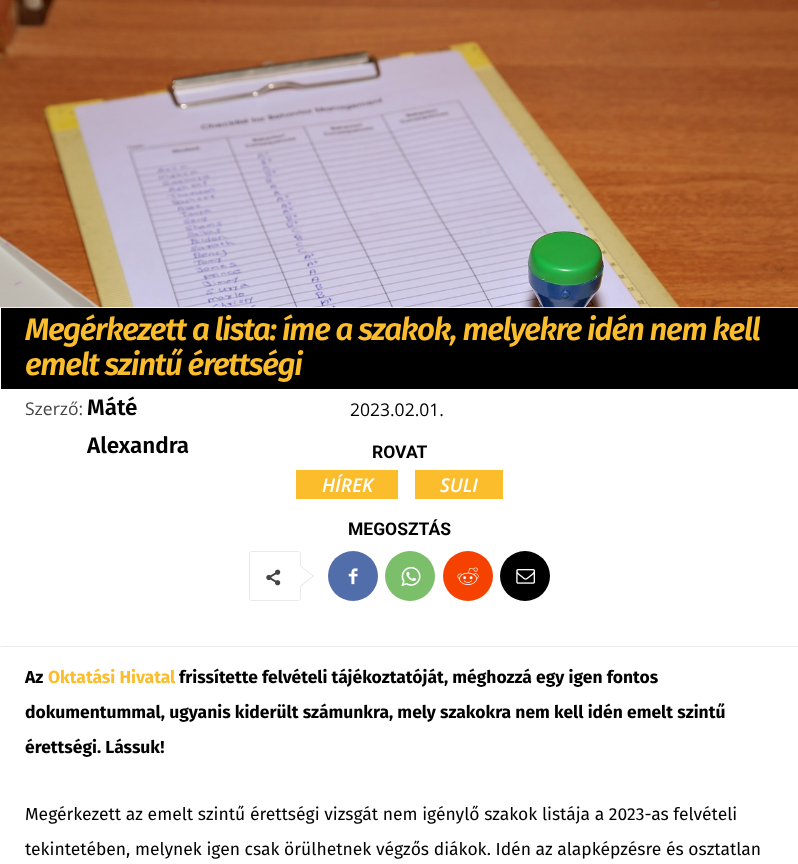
async function draw(canvas) {
  canvas.width = 798;
  canvas.height = 864;
  const ctx = canvas.getContext('2d');
  ctx.miterLimit = 4;
  ctx.fontKerning = 'normal';
  function label(s, x, y, font, color) {
    ctx.font = font;
    ctx.fillStyle = color;
    ctx.fillText(s, x, y);
  }
  function rect(x, y, w, h, color) {
    ctx.fillStyle = color;
    ctx.fillRect(x, y, w, h);
  }
  async function image(src, x, y, w, h) {
    const img = new Image();
    img.src = src;
    await img.decode();
    ctx.drawImage(img, x, y, w, h);
  }
  let path;

  rect(0, 0, 798, 864, '#fff');
  await image('assets/img1.png', 0, 0, 798, 308);
  rect(1, 308, 797, 81, '#000');
  ctx.letterSpacing = '-1.25px';
  label('Megérkezett a lista: íme a szakok, melyekre idén nem kell', 25, 340, 'italic 600 31.25px Fira Sans', '#fbbd2c');
  label('emelt szintű érettségi', 25, 375, 'italic 600 31.25px Fira Sans', '#fbbd2c');
  ctx.letterSpacing = '0px';
  label('Szerző:', 25, 415, '17.5px Open Sans', '#444');
  label('Máté', 87, 415, '600 22.5px Fira Sans', '#000');
  label('Alexandra', 87, 453, '600 22.5px Fira Sans', '#000');
  label('2023.02.01.', 350, 416, '17.5px Open Sans', '#000');
  label('ROVAT', 372, 458, 'bold 17.5px Roboto', '#000');
  rect(296, 470, 102, 29, '#fbbd2c');
  label('HÍREK', 322, 492, 'italic 600 19px Open Sans', '#fff');
  rect(415, 470, 88, 29, '#fbbd2c');
  label('SULI', 440, 492, 'italic 600 19px Open Sans', '#fff');
  label('MEGOSZTÁS', 348, 535, 'bold 17.5px Roboto', '#000');
  ctx.beginPath();
  ctx.roundRect(249.5, 551.5, 51, 49, 2);
  ctx.strokeStyle = '#e9e9e9';
  ctx.stroke();
  ctx.fillStyle = '#e9e9e9';
  path = new Path2D('M300 587.5V565L314 576Z');
  ctx.fill(path);
  await image('assets/img2.png', 266, 569, 15, 17);
  ctx.fillStyle = '#fff';
  path = new Path2D('M300 586V566L312.5 576Z');
  ctx.fill(path);
  ctx.fillStyle = '#516eab';
  ctx.beginPath();
  ctx.arc(353, 576, 25, 0, 2 * Math.PI);
  ctx.fill();
  await image('assets/img3.png', 348, 568, 10, 17);
  ctx.fillStyle = '#7bbf6a';
  ctx.beginPath();
  ctx.arc(410, 576, 25, 0, 2 * Math.PI);
  ctx.fill();
  await image('assets/img4.png', 401, 566, 20, 21);
  ctx.fillStyle = '#f54200';
  ctx.beginPath();
  ctx.arc(468, 576, 25, 0, 2 * Math.PI);
  ctx.fill();
  await image('assets/img5.png', 457, 567, 22, 18);
  ctx.fillStyle = '#000';
  ctx.beginPath();
  ctx.arc(525, 576, 25, 0, 2 * Math.PI);
  ctx.fill();
  await image('assets/img6.png', 516, 569, 19, 15);
  rect(1, 646, 797, 1, '#eaeaea');
  label('Az', 25, 683, 'bold 17.5px Fira Sans', '#000');
  label('Oktatási Hivatal', 48, 683, 'bold 17.5px Fira Sans', '#fbbd2c');
  label('frissítette felvételi tájékoztatóját, méghozzá egy igen fontos', 179, 683, 'bold 17.5px Fira Sans', '#000');
  label('dokumentummal, ugyanis kiderült számunkra, mely szakokra nem kell idén emelt szintű', 25, 718, 'bold 17.5px Fira Sans', '#000');
  label('érettségi. Lássuk!', 25, 753, 'bold 17.5px Fira Sans', '#000');
  label('Megérkezett az emelt szintű érettségi vizsgát nem igénylő szakok listája a 2023-as felvételi', 25, 820, '17.5px Fira Sans', '#000');
  label('tekintetében, melynek igen csak örülhetnek végzős diákok. Idén az alapképzésre és osztatlan', 25, 855, '17.5px Fira Sans', '#000');
}

draw(document.querySelector('canvas'));
